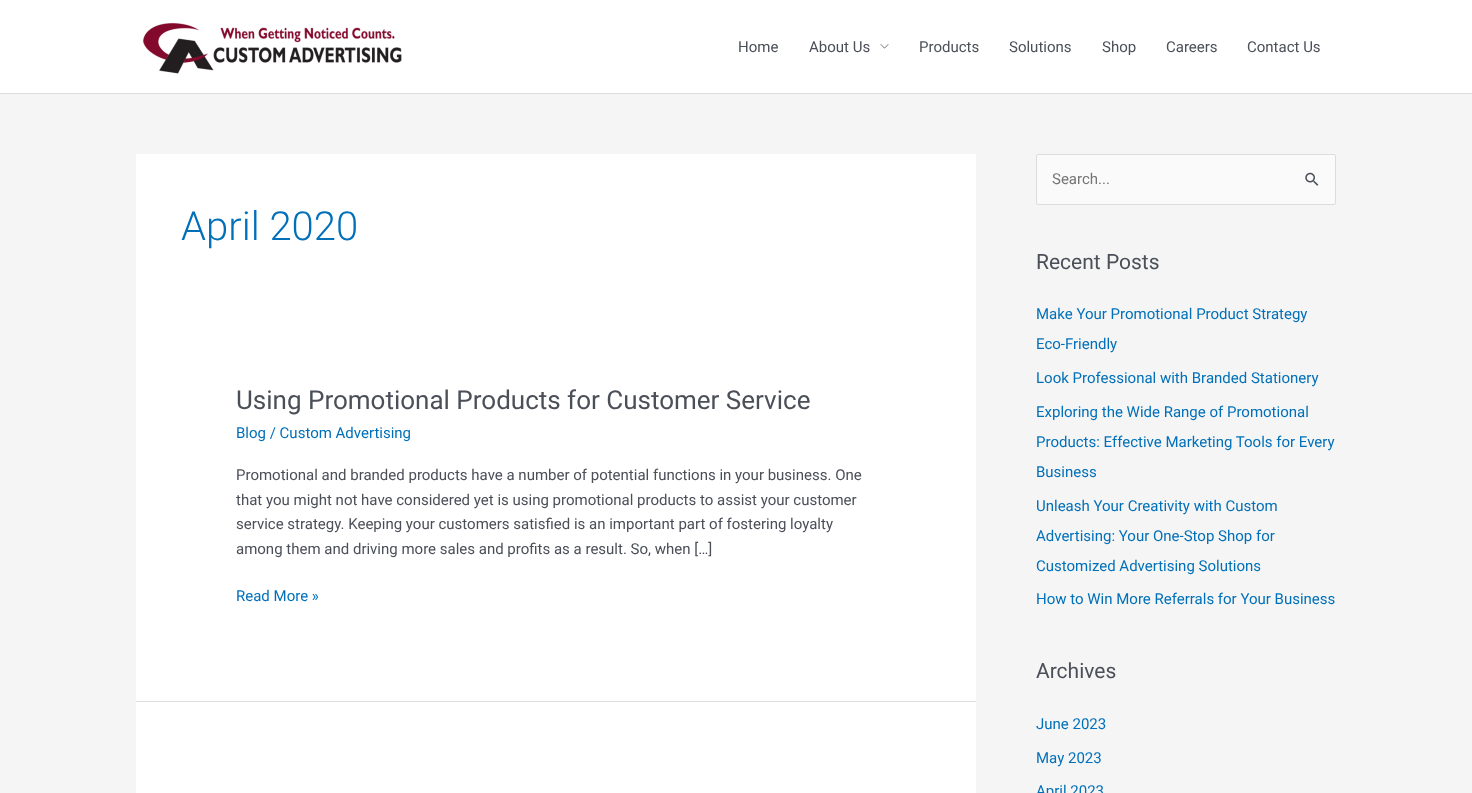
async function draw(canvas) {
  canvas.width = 1472;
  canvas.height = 793;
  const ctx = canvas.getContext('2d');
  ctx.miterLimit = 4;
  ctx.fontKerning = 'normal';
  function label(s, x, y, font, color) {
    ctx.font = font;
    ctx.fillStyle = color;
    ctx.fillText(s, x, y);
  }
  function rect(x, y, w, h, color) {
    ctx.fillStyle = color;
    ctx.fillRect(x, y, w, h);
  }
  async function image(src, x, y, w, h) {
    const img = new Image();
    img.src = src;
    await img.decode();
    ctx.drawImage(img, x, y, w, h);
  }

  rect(0, 0, 1472, 793, '#f5f5f5');
  rect(0, 0, 1472, 93, '#fff');
  rect(0, 93, 1472, 1, '#ddd');
  await image('assets/img1.png', 142, 22, 260, 52);
  label('Home', 738, 52, '15px Roboto', '#4b4f58');
  label('About Us', 809, 52, '15px Roboto', '#4b4f58');
  await image('assets/img2.png', 880, 44, 9, 5);
  label('Products', 919, 52, '15px Roboto', '#4b4f58');
  label('Solutions', 1009, 52, '15px Roboto', '#4b4f58');
  label('Shop', 1102, 52, '15px Roboto', '#4b4f58');
  label('Careers', 1166, 52, '15px Roboto', '#4b4f58');
  label('Contact Us', 1247, 52, '15px Roboto', '#4b4f58');
  rect(136, 154, 840, 547, '#fff');
  label('April 2020', 181, 240, '300 40px Roboto', '#0170b9');
  rect(136, 701, 840, 1, '#ddd');
  label('Using Promotional Products for Customer Service', 236, 409, '26px Roboto', '#4b4f58');
  label('Blog / Custom Advertising', 236, 438, '15px Roboto', '#0170b9');
  label('Promotional and branded products have a number of potential functions in your business. One', 236, 480, '15px Roboto', '#4b4f58');
  label('that you might not have considered yet is using promotional products to assist your customer', 236, 505, '15px Roboto', '#4b4f58');
  label('service strategy. Keeping your customers satisfied is an important part of fostering loyalty', 236, 529, '15px Roboto', '#4b4f58');
  label('among them and driving more sales and profits as a result. So, when […]', 236, 554, '15px Roboto', '#4b4f58');
  label('Read More »', 236, 601, '15px Roboto', '#0170b9');
  rect(136, 702, 840, 91, '#fff');
  ctx.fillStyle = '#fafafa';
  ctx.beginPath();
  ctx.roundRect(1036.5, 154.5, 299, 50, 1.5);
  ctx.fill();
  ctx.strokeStyle = '#ddd';
  ctx.stroke();
  label('Search...', 1052, 184, '15px Roboto', '#757575');
  await image('assets/img3.png', 1305, 172, 14, 14);
  label('Recent Posts', 1036, 269, '21px Roboto', '#4b4f58');
  label('Make Your Promotional Product Strategy', 1036, 319, '15px Roboto', '#0170b9');
  label('Eco-Friendly', 1036, 349, '15px Roboto', '#0170b9');
  label('Look Professional with Branded Stationery', 1036, 383, '15px Roboto', '#0170b9');
  label('Exploring the Wide Range of Promotional', 1036, 417, '15px Roboto', '#0170b9');
  label('Products: Effective Marketing Tools for Every', 1036, 447, '15px Roboto', '#0170b9');
  label('Business', 1036, 477, '15px Roboto', '#0170b9');
  label('Unleash Your Creativity with Custom', 1036, 511, '15px Roboto', '#0170b9');
  label('Advertising: Your One-Stop Shop for', 1036, 541, '15px Roboto', '#0170b9');
  label('Customized Advertising Solutions', 1036, 571, '15px Roboto', '#0170b9');
  label('How to Win More Referrals for Your Business', 1036, 604, '15px Roboto', '#0170b9');
  label('Archives', 1036, 678, '21px Roboto', '#4b4f58');
  label('June 2023', 1036, 729, '15px Roboto', '#0170b9');
  label('May 2023', 1036, 763, '15px Roboto', '#0170b9');
  label('April 2023', 1036, 796, '15px Roboto', '#0170b9');
}

draw(document.querySelector('canvas'));
